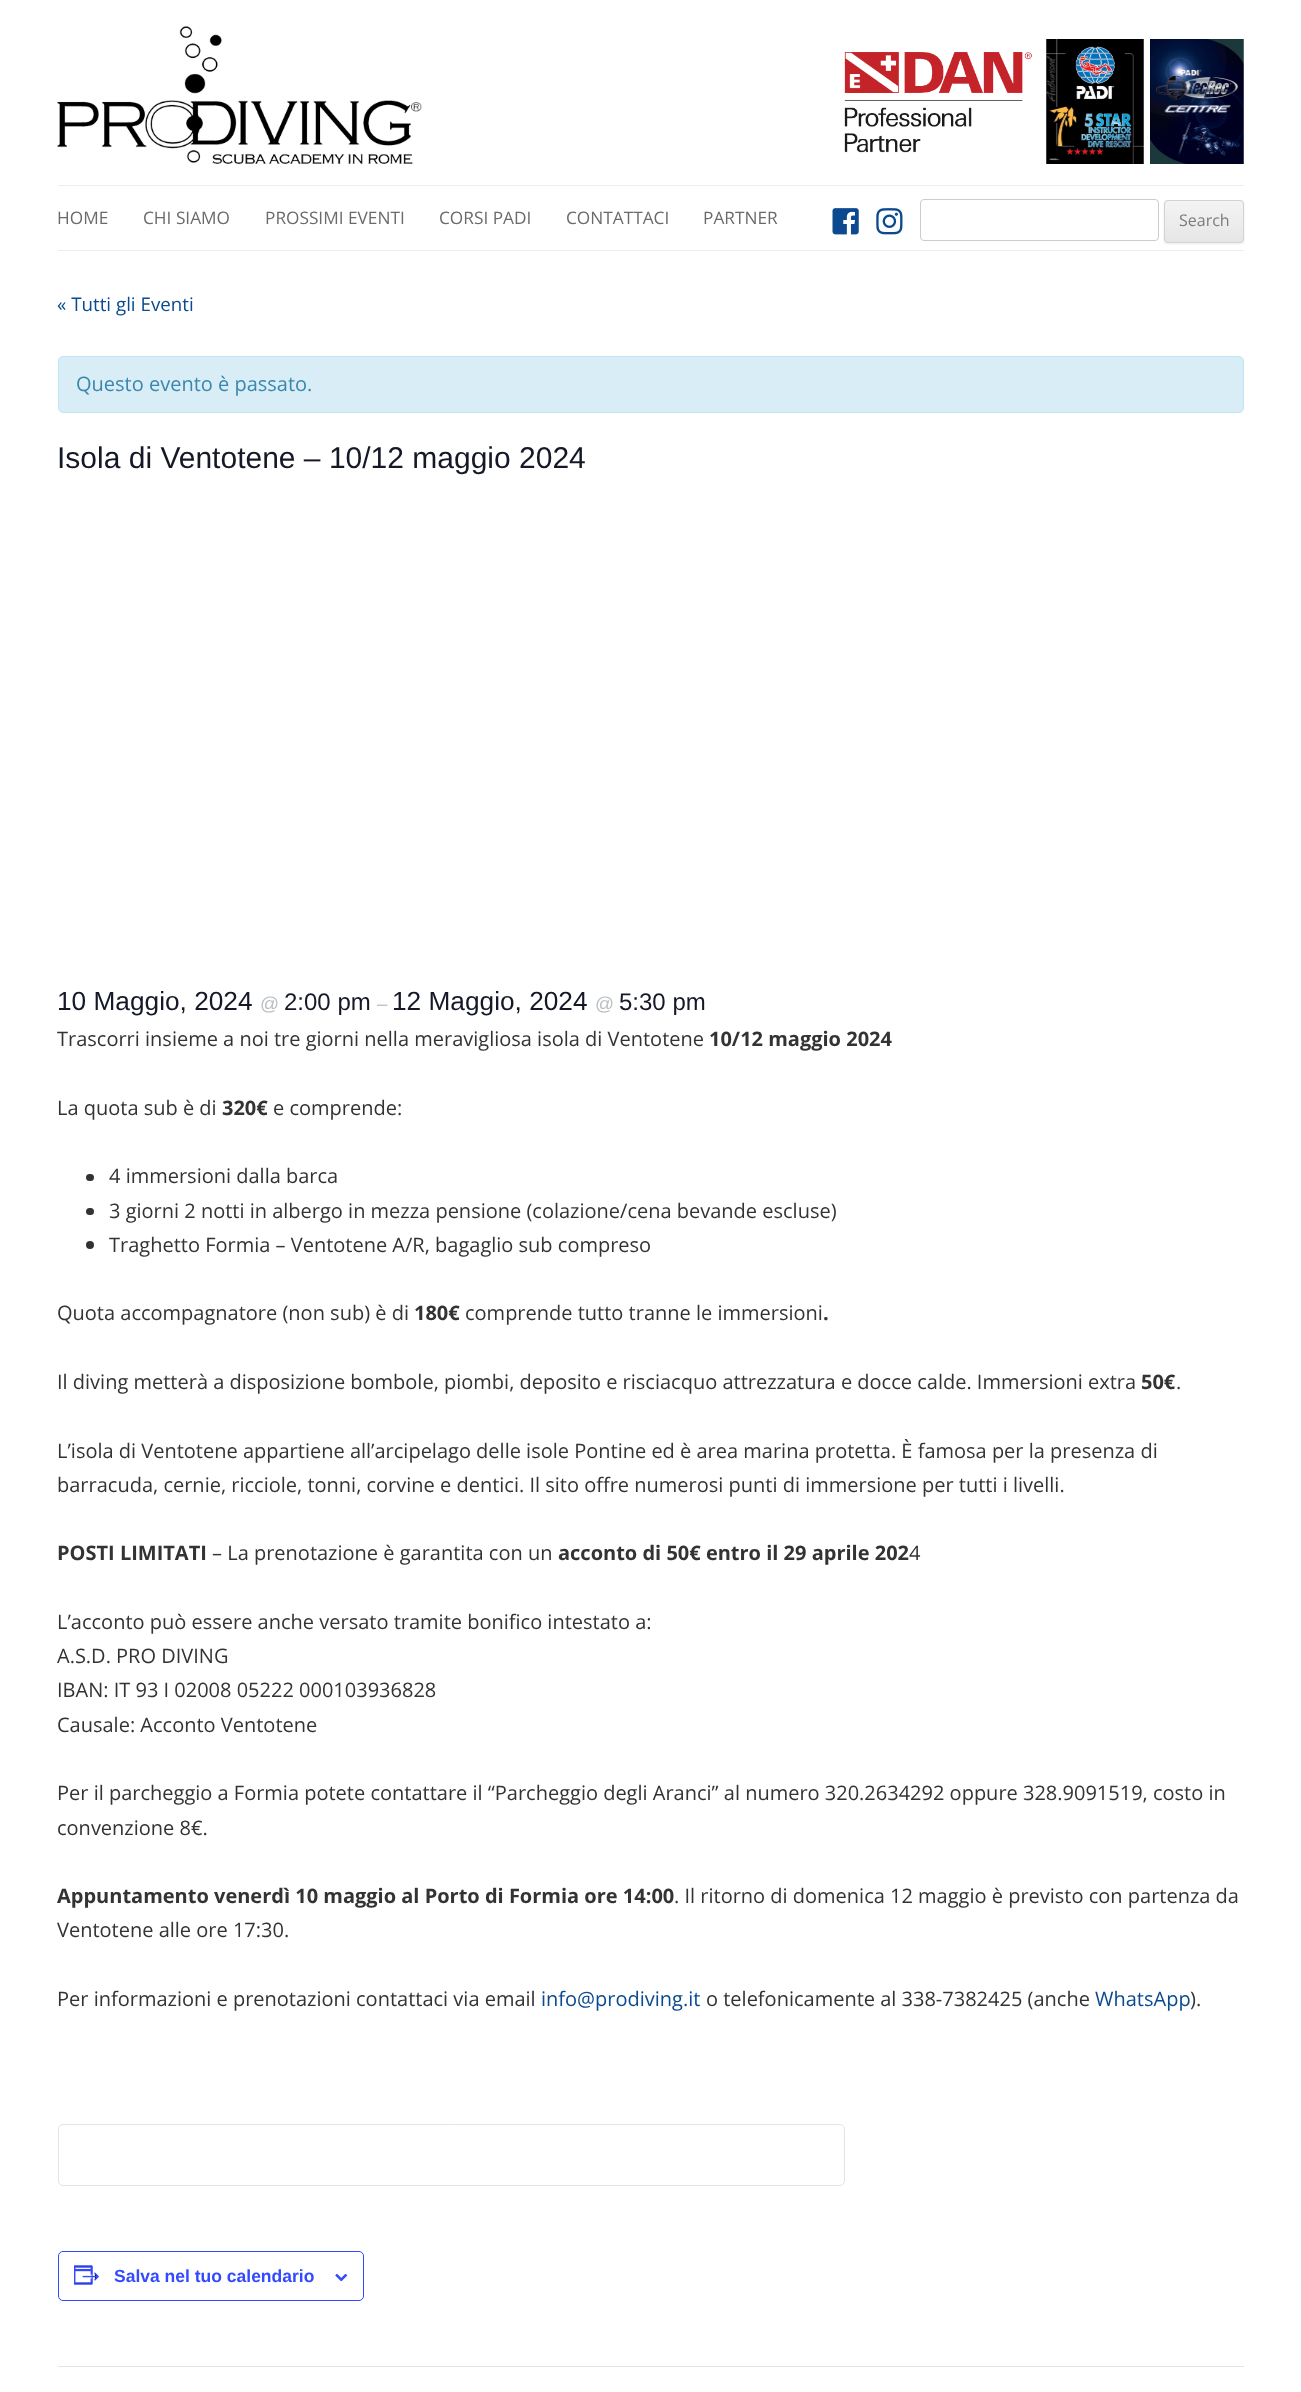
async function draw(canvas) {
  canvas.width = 1301;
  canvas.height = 2392;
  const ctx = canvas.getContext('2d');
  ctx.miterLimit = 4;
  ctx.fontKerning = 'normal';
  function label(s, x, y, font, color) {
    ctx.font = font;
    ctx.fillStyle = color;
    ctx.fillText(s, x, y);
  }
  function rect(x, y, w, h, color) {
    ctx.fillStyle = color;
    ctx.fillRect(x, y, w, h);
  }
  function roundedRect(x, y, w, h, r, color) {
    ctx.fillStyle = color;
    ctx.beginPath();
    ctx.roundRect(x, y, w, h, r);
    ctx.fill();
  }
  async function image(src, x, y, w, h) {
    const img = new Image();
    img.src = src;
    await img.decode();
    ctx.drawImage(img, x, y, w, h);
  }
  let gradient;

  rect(0, 0, 1301, 2392, '#fff');
  await image('assets/img1.png', 57, 26, 365, 138);
  await image('assets/img2.png', 844, 52, 188, 101);
  await image('assets/img3.png', 1046, 39, 98, 125);
  await image('assets/img4.png', 1150, 39, 94, 125);
  rect(58, 185, 1186, 1, '#ededed');
  rect(58, 250, 1186, 1, '#ededed');
  label('HOME', 57, 224, '17.25px Open Sans', '#6a6a6a');
  label('CHI SIAMO', 143, 224, '17.25px Open Sans', '#6a6a6a');
  label('PROSSIMI EVENTI', 265, 224, '17.25px Open Sans', '#6a6a6a');
  label('CORSI PADI', 439, 224, '17.25px Open Sans', '#6a6a6a');
  label('CONTATTACI', 566, 224, '17.25px Open Sans', '#6a6a6a');
  label('PARTNER', 703, 224, '17.25px Open Sans', '#6a6a6a');
  await image('assets/img5.png', 832, 208, 27, 27);
  await image('assets/img6.png', 876, 208, 27, 27);
  ctx.beginPath();
  ctx.roundRect(920.5, 199.5, 238, 41, 3.5);
  ctx.strokeStyle = '#ccc';
  ctx.stroke();
  ctx.fillStyle = '#4040401a';
  ctx.filter = 'blur(1px)';
  ctx.beginPath();
  ctx.roundRect(1164, 201, 80, 43, 4);
  ctx.fill();
  ctx.filter = 'none';
  roundedRect(1164, 200, 80, 43, 4, '#e6e6e6');
  ctx.save();
  ctx.beginPath();
  ctx.roundRect(1164, 200, 80, 43, 4);
  ctx.clip();
  gradient = ctx.createLinearGradient(1204, 201, 1204, 241);
  gradient.addColorStop(0, '#f4f4f4');
  gradient.addColorStop(1, '#e6e6e6');
  ctx.fillStyle = gradient;
  ctx.fillRect(1164, 201, 80, 40);
  ctx.restore();
  ctx.beginPath();
  ctx.roundRect(1164.5, 200.5, 79, 42, 3.5);
  ctx.strokeStyle = '#d2d2d2';
  ctx.stroke();
  label('Search', 1179, 226, '16px Open Sans', '#7c7c7c');
  label('« Tutti gli Eventi', 57, 311, '18.75px Open Sans', '#0b4a8e');
  ctx.fillStyle = '#d9edf7';
  ctx.beginPath();
  ctx.roundRect(58.5, 356.5, 1185, 56, 4.5);
  ctx.fill();
  ctx.strokeStyle = '#bce8f1';
  ctx.stroke();
  label('Questo evento è passato.', 76, 391, '20px Open Sans', '#3a87ad');
  label('Isola di Ventotene – 10/12 maggio 2024', 57, 468, '30px Liberation Sans', '#141827');
  label('10 Maggio, 2024', 57, 1010, '26.25px Liberation Sans', '#141827');
  label('@', 260, 1010, '18.75px Liberation Sans', '#b9bec2');
  label('2:00 pm', 284, 1010, '24px Liberation Sans', '#141827');
  label('–', 377, 1010, '18.75px Liberation Sans', '#b9bec2');
  label('12 Maggio, 2024', 392, 1010, '26.25px Liberation Sans', '#141827');
  label('@', 595, 1010, '18.75px Liberation Sans', '#b9bec2');
  label('5:30 pm', 619, 1010, '24px Liberation Sans', '#141827');
  label('Trascorri insieme a noi tre giorni nella meravigliosa isola di Ventotene', 57, 1046, '20px Open Sans', '#333');
  label('10/12 maggio 2024', 709, 1046, 'bold 20px Open Sans', '#333');
  label('La quota sub è di', 57, 1115, '20px Open Sans', '#333');
  label('320€', 222, 1115, 'bold 20px Open Sans', '#333');
  label('e comprende:', 273, 1115, '20px Open Sans', '#333');
  roundedRect(86, 1174, 8, 7, 3.5, '#333');
  label('4 immersioni dalla barca', 109, 1183, '20px Open Sans', '#333');
  roundedRect(86, 1208, 8, 7, 3.5, '#333');
  label('3 giorni 2 notti in albergo in mezza pensione (colazione/cena bevande escluse)', 109, 1218, '20px Open Sans', '#333');
  ctx.beginPath();
  ctx.arc(90, 1245, 4, 0, 2 * Math.PI);
  ctx.fill();
  label('Traghetto Formia – Ventotene A/R, bagaglio sub compreso', 109, 1252, '20px Open Sans', '#333');
  label('Quota accompagnatore (non sub) è di', 57, 1320, '20px Open Sans', '#333');
  label('180€', 414, 1320, 'bold 20px Open Sans', '#333');
  label('comprende tutto tranne le immersioni', 465, 1320, '20px Open Sans', '#333');
  label('.', 823, 1320, 'bold 20px Open Sans', '#333');
  label('Il diving metterà a disposizione bombole, piombi, deposito e risciacquo attrezzatura e docce calde. Immersioni extra', 57, 1389, '20px Open Sans', '#333');
  label('50€', 1141, 1389, 'bold 20px Open Sans', '#333');
  label('.', 1176, 1389, '20px Open Sans', '#333');
  label('L’isola di Ventotene appartiene all’arcipelago delle isole Pontine ed è area marina protetta. È famosa per la presenza di', 57, 1458, '20px Open Sans', '#333');
  label('barracuda, cernie, ricciole, tonni, corvine e dentici. Il sito offre numerosi punti di immersione per tutti i livelli.', 57, 1492, '20px Open Sans', '#333');
  label('POSTI LIMITATI', 57, 1560, 'bold 20px Open Sans', '#333');
  label('– La prenotazione è garantita con un', 212, 1560, '20px Open Sans', '#333');
  label('acconto di 50€ entro il 29 aprile 202', 558, 1560, 'bold 20px Open Sans', '#333');
  label('4', 909, 1560, '20px Open Sans', '#333');
  label('L’acconto può essere anche versato tramite bonifico intestato a:', 57, 1629, '20px Open Sans', '#333');
  label('A.S.D. PRO DIVING', 57, 1663, '20px Open Sans', '#333');
  label('IBAN: IT 93 I 02008 05222 000103936828', 57, 1697, '20px Open Sans', '#333');
  label('Causale: Acconto Ventotene', 57, 1732, '20px Open Sans', '#333');
  label('Per il parcheggio a Formia potete contattare il “Parcheggio degli Aranci” al numero 320.2634292 oppure 328.9091519, costo in', 57, 1800, '20px Open Sans', '#333');
  label('convenzione 8€.', 57, 1835, '20px Open Sans', '#333');
  label('Appuntamento venerdì 10 maggio al Porto di Formia ore 14:00', 57, 1903, 'bold 20px Open Sans', '#333');
  label('. Il ritorno di domenica 12 maggio è previsto con partenza da', 674, 1903, '20px Open Sans', '#333');
  label('Ventotene alle ore 17:30.', 57, 1937, '20px Open Sans', '#333');
  label('Per informazioni e prenotazioni contattaci via email', 57, 2006, '20px Open Sans', '#333');
  label('info@prodiving.it', 541, 2006, '20px Open Sans', '#0b4a8e');
  label('o telefonicamente al 338-7382425 (anche', 706, 2006, '20px Open Sans', '#333');
  label('WhatsApp', 1095, 2006, '20px Open Sans', '#0b4a8e');
  label(').', 1190, 2006, '20px Open Sans', '#333');
  ctx.beginPath();
  ctx.roundRect(58.5, 2124.5, 786, 61, 4.5);
  ctx.strokeStyle = '#e4e4e4';
  ctx.stroke();
  ctx.beginPath();
  ctx.roundRect(58.5, 2251.5, 305, 49, 4.5);
  ctx.strokeStyle = '#334aff';
  ctx.stroke();
  await image('assets/img7.png', 74, 2265, 25, 20);
  label('Salva nel tuo calendario', 114, 2282, 'bold 17.5px Liberation Sans', '#334aff');
  await image('assets/img8.png', 335, 2274, 13, 7);
  rect(58, 2366, 1186, 1, '#e5e5e5');
}

draw(document.querySelector('canvas'));
